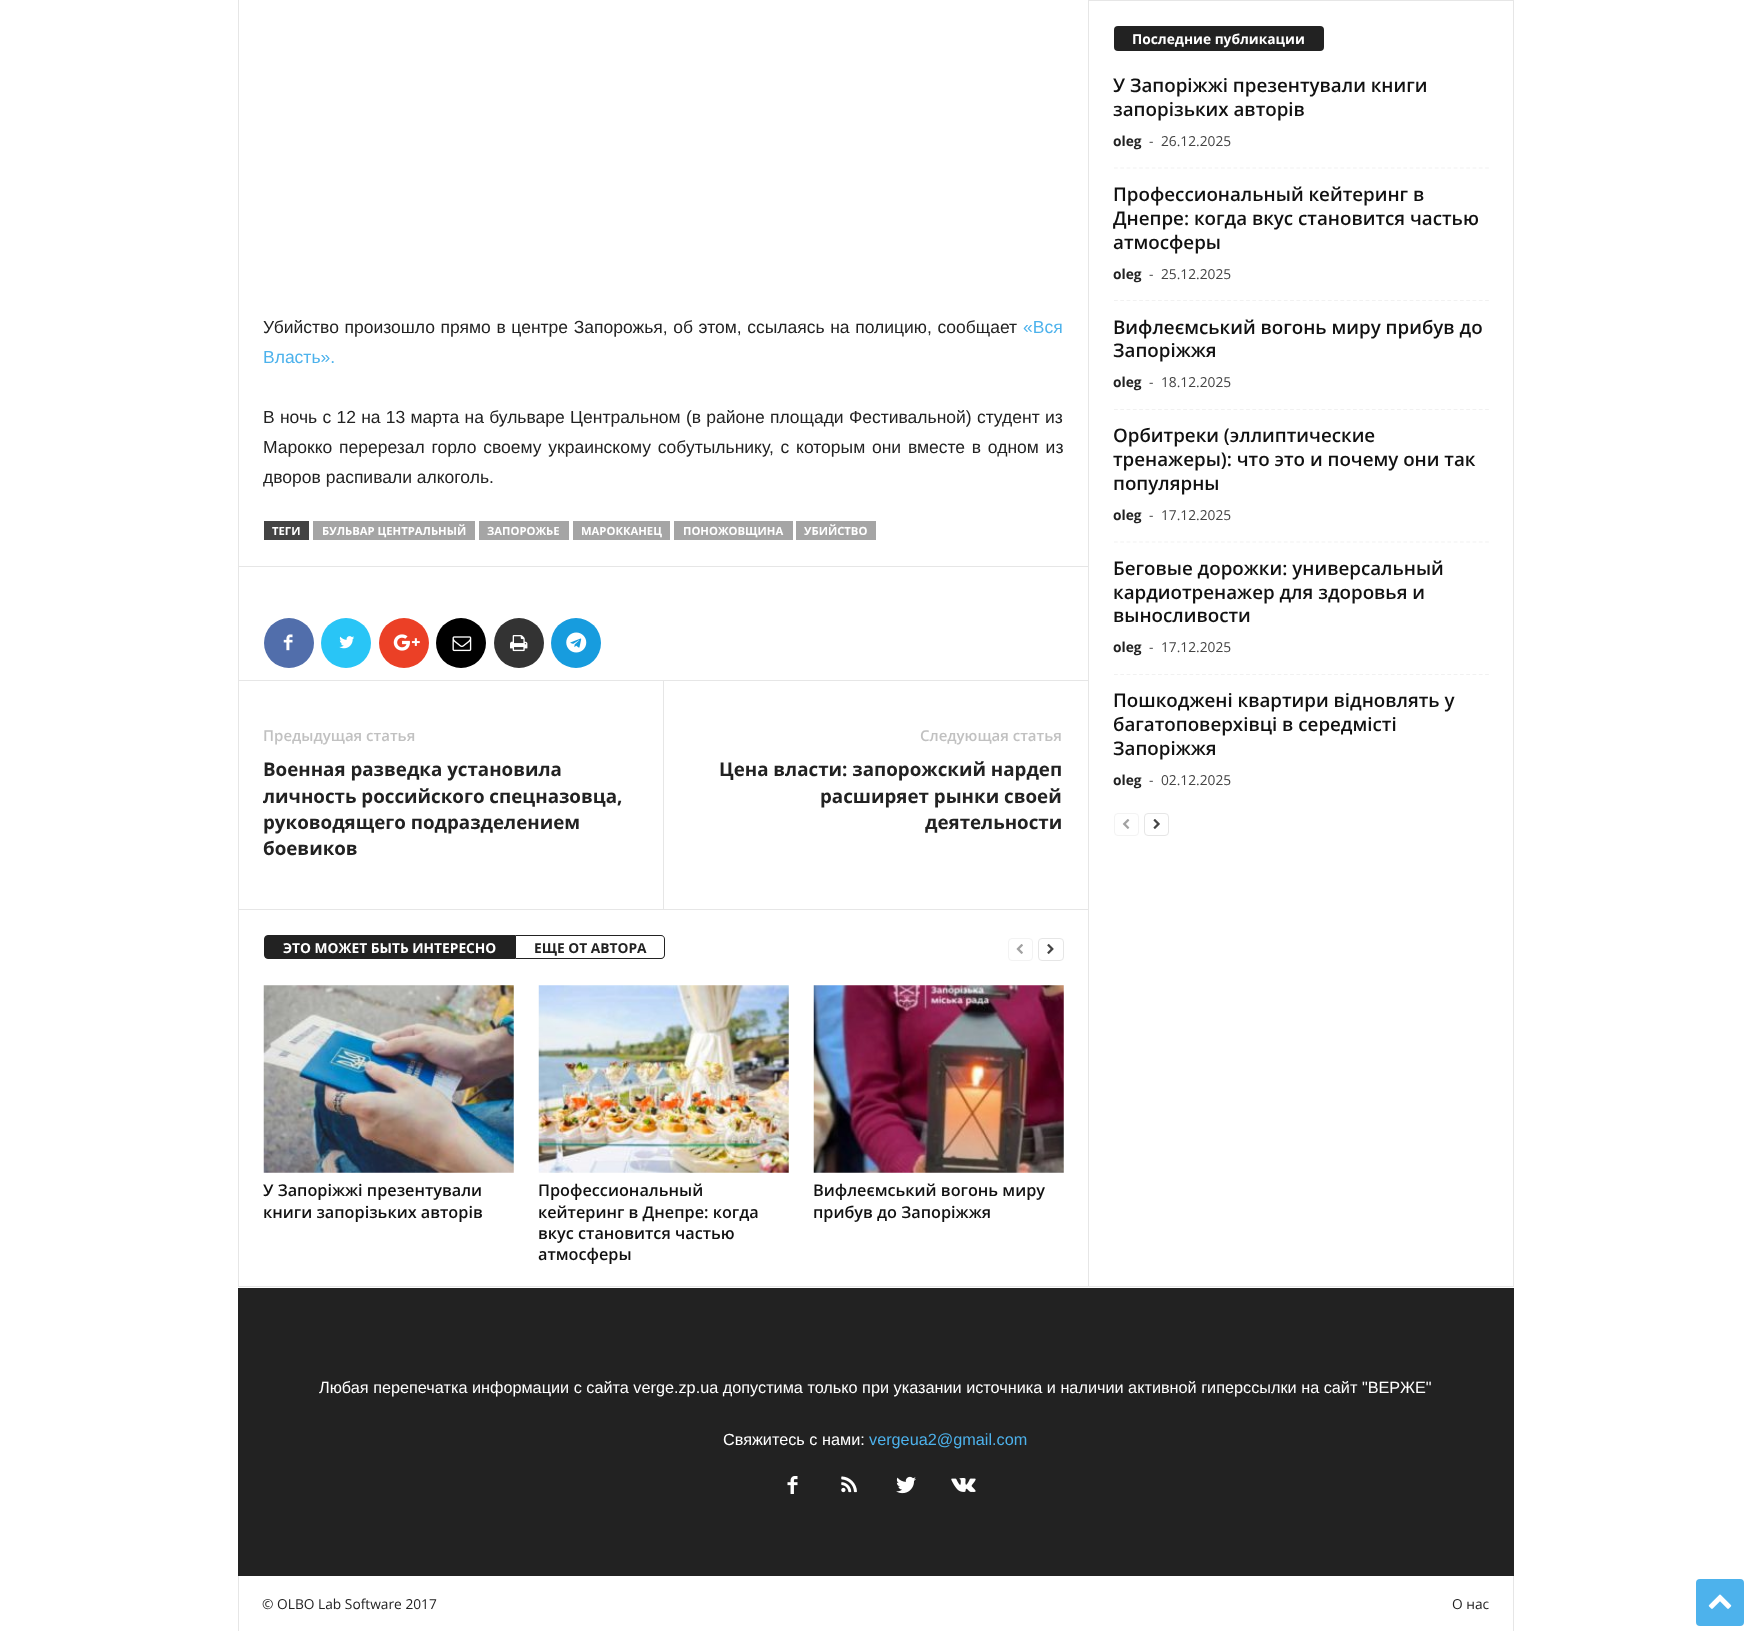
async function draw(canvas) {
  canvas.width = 1750;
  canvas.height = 1631;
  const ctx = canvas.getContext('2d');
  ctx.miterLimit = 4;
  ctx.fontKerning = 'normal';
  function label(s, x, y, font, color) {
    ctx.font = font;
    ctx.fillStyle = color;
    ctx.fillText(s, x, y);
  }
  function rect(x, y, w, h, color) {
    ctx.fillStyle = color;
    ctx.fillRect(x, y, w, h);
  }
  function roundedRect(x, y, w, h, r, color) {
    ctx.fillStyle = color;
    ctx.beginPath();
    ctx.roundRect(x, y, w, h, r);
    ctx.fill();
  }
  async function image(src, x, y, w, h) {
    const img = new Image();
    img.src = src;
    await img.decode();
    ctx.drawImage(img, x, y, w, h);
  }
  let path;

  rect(0, 0, 1750, 1631, '#fff');
  rect(238, 1286, 1276, 1, '#e6e6e6');
  rect(238, 0, 1, 1286, '#e6e6e6');
  ctx.wordSpacing = '0.75px';
  label('Убийство произошло прямо в центре Запорожья, об этом, ссылаясь на полицию, сообщает', 263, 333, '17.5px Liberation Sans', '#222');
  ctx.wordSpacing = '0px';
  label('«Вся', 1023, 333, '17.5px Liberation Sans', '#4db2ec');
  label('Власть».', 263, 363, '17.5px Liberation Sans', '#4db2ec');
  ctx.wordSpacing = '0.4px';
  label('В ночь с 12 на 13 марта на бульваре Центральном (в районе площади Фестивальной) студент из', 263, 423, '17.5px Liberation Sans', '#222');
  ctx.wordSpacing = '1.9px';
  label('Марокко перерезал горло своему украинскому собутыльнику, с которым они вместе в одном из', 263, 453, '17.5px Liberation Sans', '#222');
  ctx.wordSpacing = '0px';
  label('дворов распивали алкоголь.', 263, 483, '17.5px Liberation Sans', '#222');
  rect(264, 521, 45, 19, '#444');
  label('ТЕГИ', 272, 535, 'bold 11.25px Open Sans', '#fff');
  rect(313, 521, 162, 19, '#a5a5a5');
  label('БУЛЬВАР ЦЕНТРАЛЬНЫЙ', 322, 535, 'bold 11.25px Open Sans', '#fff');
  rect(479, 521, 90, 19, '#a5a5a5');
  label('ЗАПОРОЖЬЕ', 487, 535, 'bold 11.25px Open Sans', '#fff');
  rect(573, 521, 97, 19, '#a5a5a5');
  label('МАРОККАНЕЦ', 581, 535, 'bold 11.25px Open Sans', '#fff');
  rect(674, 521, 119, 19, '#a5a5a5');
  label('ПОНОЖОВЩИНА', 683, 535, 'bold 11.25px Open Sans', '#fff');
  rect(796, 521, 80, 19, '#a5a5a5');
  label('УБИЙСТВО', 804, 535, 'bold 11.25px Open Sans', '#fff');
  rect(239, 566, 849, 1, '#e6e6e6');
  ctx.fillStyle = '#516eab';
  ctx.beginPath();
  ctx.arc(289, 643, 25, 0, 2 * Math.PI);
  ctx.fill();
  await image('assets/img1.png', 283, 634, 10, 17);
  ctx.fillStyle = '#29c5f6';
  ctx.beginPath();
  ctx.arc(346, 643, 25, 0, 2 * Math.PI);
  ctx.fill();
  await image('assets/img2.png', 339, 636, 16, 13);
  ctx.fillStyle = '#eb4026';
  ctx.beginPath();
  ctx.arc(404, 643, 25, 0, 2 * Math.PI);
  ctx.fill();
  await image('assets/img3.png', 393, 634, 27, 17);
  ctx.fillStyle = '#000';
  ctx.beginPath();
  ctx.arc(461, 643, 25, 0, 2 * Math.PI);
  ctx.fill();
  await image('assets/img4.png', 452, 636, 20, 16);
  ctx.fillStyle = '#333';
  ctx.beginPath();
  ctx.arc(519, 643, 25, 0, 2 * Math.PI);
  ctx.fill();
  await image('assets/img5.png', 510, 635, 18, 17);
  ctx.fillStyle = '#179cde';
  ctx.beginPath();
  ctx.arc(576, 643, 25, 0, 2 * Math.PI);
  ctx.fill();
  await image('assets/img6.png', 566, 632, 21, 21);
  rect(239, 680, 849, 1, '#e6e6e6');
  label('Предыдущая статья', 263, 741, '600 15px Open Sans', '#c1c1c1');
  label('Военная разведка установила', 263, 776, 'bold 18.75px Open Sans', '#222');
  label('личность российского спецназовца,', 263, 803, 'bold 18.75px Open Sans', '#222');
  label('руководящего подразделением', 263, 829, 'bold 18.75px Open Sans', '#222');
  label('боевиков', 263, 855, 'bold 18.75px Open Sans', '#222');
  rect(663, 681, 1, 228, '#e6e6e6');
  label('Следующая статья', 920, 741, '600 15px Open Sans', '#c1c1c1');
  label('Цена власти: запорожский нардеп', 719, 776, 'bold 18.75px Open Sans', '#222');
  label('расширяет рынки своей', 820, 803, 'bold 18.75px Open Sans', '#222');
  label('деятельности', 925, 829, 'bold 18.75px Open Sans', '#222');
  rect(239, 909, 849, 1, '#e6e6e6');
  ctx.fillStyle = '#222';
  ctx.beginPath();
  ctx.roundRect(264.5, 935.5, 251, 23, [3.5, 0, 0, 3.5]);
  ctx.fill();
  ctx.strokeStyle = '#222';
  ctx.stroke();
  label('ЭТО МОЖЕТ БЫТЬ ИНТЕРЕСНО', 283, 953, 'bold 13.75px Open Sans', '#fff');
  ctx.fillStyle = '#222';
  path = new Path2D('M516 935H661C663 935 665 937 665 939V955C665 957 663 959 661 959H516ZM516 936H661C663 936 664 937 664 939V955C664 956 663 958 661 958H516Z');
  ctx.fill(path, 'evenodd');
  label('ЕЩЕ ОТ АВТОРА', 534, 953, 'bold 13.75px Open Sans', '#222');
  ctx.beginPath();
  ctx.roundRect(1008.5, 938.5, 24, 22, 3.5);
  ctx.strokeStyle = '#f3f3f3';
  ctx.stroke();
  await image('assets/img7.png', 1016, 944, 7, 10);
  ctx.beginPath();
  ctx.roundRect(1038.5, 938.5, 25, 22, 3.5);
  ctx.strokeStyle = '#e6e6e6';
  ctx.stroke();
  await image('assets/img8.png', 1047, 943, 7, 11);
  await image('assets/img9.png', 263, 985, 251, 188);
  label('У Запоріжжі презентували', 263, 1196, '600 16.25px Open Sans', '#111');
  label('книги запорізьких авторів', 263, 1218, '600 16.25px Open Sans', '#111');
  await image('assets/img10.png', 538, 985, 251, 188);
  label('Профессиональный', 538, 1196, '600 16.25px Open Sans', '#111');
  label('кейтеринг в Днепре: когда', 538, 1218, '600 16.25px Open Sans', '#111');
  label('вкус становится частью', 538, 1239, '600 16.25px Open Sans', '#111');
  label('атмосферы', 538, 1260, '600 16.25px Open Sans', '#111');
  await image('assets/img11.png', 813, 985, 251, 188);
  label('Вифлеємський вогонь миру', 813, 1196, '600 16.25px Open Sans', '#111');
  label('прибув до Запоріжжя', 813, 1218, '600 16.25px Open Sans', '#111');
  rect(1088, 0, 1, 1286, '#e6e6e6');
  rect(1089, 0, 424, 1, '#e6e6e6');
  roundedRect(1114, 26, 210, 25, 4, '#222');
  label('Последние публикации', 1132, 44, 'bold 13.75px Open Sans', '#fff');
  path = new Path2D('M1114 168H1489');
  ctx.strokeStyle = '#f1f1f1';
  ctx.lineWidth = 1.2;
  ctx.setLineDash([3.75, 2.54]);
  ctx.stroke(path);
  label('У Запоріжжі презентували книги', 1113, 92, '600 18.75px Open Sans', '#111');
  label('запорізьких авторів', 1113, 116, '600 18.75px Open Sans', '#111');
  label('oleg', 1113, 146, 'bold 13.75px Open Sans', '#222');
  label('-', 1149, 146, '13.75px Open Sans', '#444');
  label('26.12.2025', 1161, 146, '13.75px Open Sans', '#444');
  path = new Path2D('M1114 300.5H1489');
  ctx.stroke(path);
  label('Профессиональный кейтеринг в', 1113, 201, '600 18.75px Open Sans', '#111');
  label('Днепре: когда вкус становится частью', 1113, 225, '600 18.75px Open Sans', '#111');
  label('атмосферы', 1113, 249, '600 18.75px Open Sans', '#111');
  label('oleg', 1113, 279, 'bold 13.75px Open Sans', '#222');
  label('-', 1149, 279, '13.75px Open Sans', '#444');
  label('25.12.2025', 1161, 279, '13.75px Open Sans', '#444');
  path = new Path2D('M1114 409.5H1489');
  ctx.stroke(path);
  label('Вифлеємський вогонь миру прибув до', 1113, 334, '600 18.75px Open Sans', '#111');
  label('Запоріжжя', 1113, 357, '600 18.75px Open Sans', '#111');
  label('oleg', 1113, 387, 'bold 13.75px Open Sans', '#222');
  label('-', 1149, 387, '13.75px Open Sans', '#444');
  label('18.12.2025', 1161, 387, '13.75px Open Sans', '#444');
  path = new Path2D('M1114 542H1489');
  ctx.stroke(path);
  label('Орбитреки (эллиптические', 1113, 442, '600 18.75px Open Sans', '#111');
  label('тренажеры): что это и почему они так', 1113, 466, '600 18.75px Open Sans', '#111');
  label('популярны', 1113, 490, '600 18.75px Open Sans', '#111');
  label('oleg', 1113, 520, 'bold 13.75px Open Sans', '#222');
  label('-', 1149, 520, '13.75px Open Sans', '#444');
  label('17.12.2025', 1161, 520, '13.75px Open Sans', '#444');
  path = new Path2D('M1114 674.5H1489');
  ctx.stroke(path);
  label('Беговые дорожки: универсальный', 1113, 575, '600 18.75px Open Sans', '#111');
  label('кардиотренажер для здоровья и', 1113, 599, '600 18.75px Open Sans', '#111');
  label('выносливости', 1113, 622, '600 18.75px Open Sans', '#111');
  label('oleg', 1113, 652, 'bold 13.75px Open Sans', '#222');
  label('-', 1149, 652, '13.75px Open Sans', '#444');
  label('17.12.2025', 1161, 652, '13.75px Open Sans', '#444');
  label('Пошкоджені квартири відновлять у', 1113, 707, '600 18.75px Open Sans', '#111');
  label('багатоповерхівці в середмісті', 1113, 731, '600 18.75px Open Sans', '#111');
  label('Запоріжжя', 1113, 755, '600 18.75px Open Sans', '#111');
  label('oleg', 1113, 785, 'bold 13.75px Open Sans', '#222');
  label('-', 1149, 785, '13.75px Open Sans', '#444');
  label('02.12.2025', 1161, 785, '13.75px Open Sans', '#444');
  ctx.beginPath();
  ctx.roundRect(1114.5, 813.5, 24, 22, 3.5);
  ctx.strokeStyle = '#f3f3f3';
  ctx.lineWidth = 1;
  ctx.setLineDash([]);
  ctx.stroke();
  await image('assets/img12.png', 1122, 819, 8, 10);
  ctx.beginPath();
  ctx.roundRect(1144.5, 813.5, 24, 22, 3.5);
  ctx.strokeStyle = '#e6e6e6';
  ctx.stroke();
  await image('assets/img13.png', 1153, 819, 7, 10);
  rect(1513, 0, 1, 1286, '#e6e6e6');
  rect(238, 1288, 1276, 288, '#222');
  label('Любая перепечатка информации с сайта verge.zp.ua допустима только при указании источника и наличии активной гиперссылки на сайт "ВЕРЖЕ"', 319, 1393, '16.25px Liberation Sans', '#fff');
  label('Свяжитесь с нами:', 723, 1445, '16.25px Liberation Sans', '#fff');
  label('vergeua2@gmail.com', 869, 1445, '16.25px Liberation Sans', '#4db2ec');
  await image('assets/img14.png', 787, 1476, 11, 18);
  await image('assets/img15.png', 841, 1476, 16, 17);
  await image('assets/img16.png', 896, 1476, 20, 18);
  await image('assets/img17.png', 951, 1478, 25, 14);
  rect(238, 1576, 1, 55, '#e6e6e6');
  label('© OLBO Lab Software 2017', 262, 1609, '13.75px Open Sans', '#222');
  label('О нас', 1452, 1609, '13.75px Open Sans', '#222');
  rect(1513, 1576, 1, 55, '#e6e6e6');
  roundedRect(1696, 1579, 48, 47, 4, '#4db2ec');
  await image('assets/img18.png', 1708, 1594, 24, 15);
}

draw(document.querySelector('canvas'));
